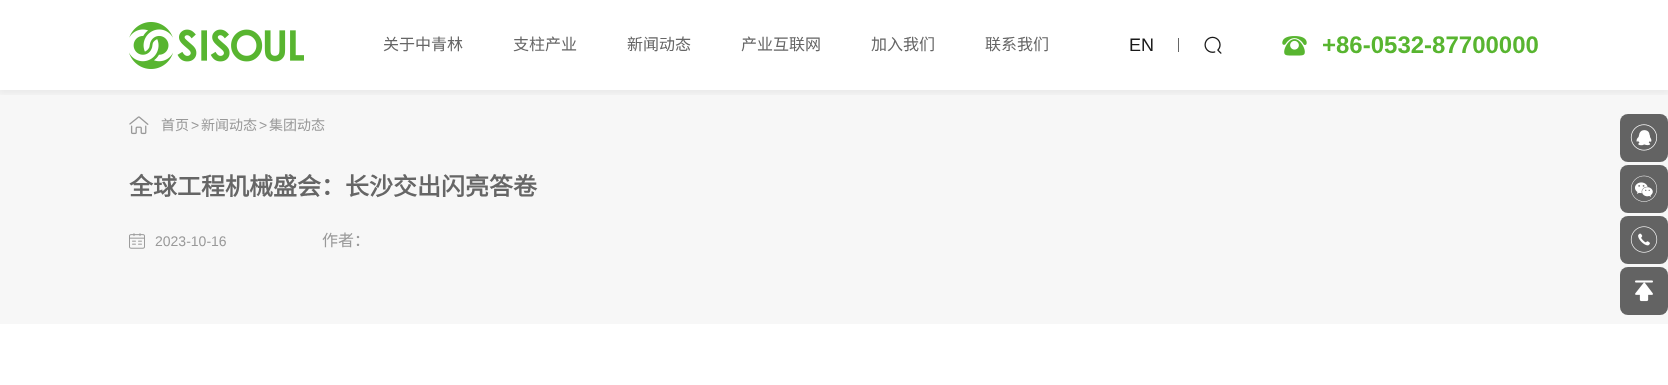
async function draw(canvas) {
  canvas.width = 1668;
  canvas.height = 385;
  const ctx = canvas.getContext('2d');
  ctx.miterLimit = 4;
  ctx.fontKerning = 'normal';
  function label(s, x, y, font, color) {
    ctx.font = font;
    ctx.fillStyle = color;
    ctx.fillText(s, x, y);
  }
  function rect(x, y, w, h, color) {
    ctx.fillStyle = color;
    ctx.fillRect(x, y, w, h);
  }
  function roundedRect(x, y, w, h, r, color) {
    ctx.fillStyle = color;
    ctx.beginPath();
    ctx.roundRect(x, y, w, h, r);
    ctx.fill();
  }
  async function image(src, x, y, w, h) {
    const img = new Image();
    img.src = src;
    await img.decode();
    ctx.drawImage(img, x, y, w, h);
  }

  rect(0, 0, 1668, 385, '#fff');
  rect(0, 90, 1668, 234, '#f7f7f7');
  ctx.save();
  ctx.beginPath();
  ctx.rect(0, 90, 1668, 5);
  ctx.clip();
  ctx.fillStyle = '#0000000d';
  ctx.filter = 'blur(3.5px)';
  ctx.beginPath();
  ctx.rect(-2, 0, 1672, 94);
  ctx.fill();
  ctx.filter = 'none';
  ctx.restore();
  await image('assets/img1.png', 129, 22, 175, 47);
  label('关于中青林', 383, 50, '16px Noto Sans CJK SC', '#666');
  label('支柱产业', 513, 50, '16px Noto Sans CJK SC', '#666');
  label('新闻动态', 627, 50, '16px Noto Sans CJK SC', '#666');
  label('产业互联网', 741, 50, '16px Noto Sans CJK SC', '#666');
  label('加入我们', 871, 50, '16px Noto Sans CJK SC', '#666');
  label('联系我们', 985, 50, '16px Noto Sans CJK SC', '#666');
  label('EN', 1129, 51, '18px Liberation Sans', '#191919');
  rect(1178, 38, 1, 14, '#666');
  await image('assets/img2.png', 1204, 36, 18, 18);
  await image('assets/img3.png', 1282, 36, 25, 20);
  label('+86-0532-87700000', 1322, 53, 'bold 24px Liberation Sans', '#58b530');
  await image('assets/img4.png', 129, 116, 20, 19);
  label('首页', 161, 130, '14px Noto Sans CJK SC', '#999');
  label('>', 191, 130, '14px Liberation Sans', '#999');
  label('新闻动态', 201, 130, '14px Noto Sans CJK SC', '#999');
  label('>', 259, 130, '14px Liberation Sans', '#999');
  label('集团动态', 269, 130, '14px Noto Sans CJK SC', '#999');
  label('全球工程机械盛会：长沙交出闪亮答卷', 129, 195, 'bold 24px Noto Sans CJK SC', '#666');
  await image('assets/img5.png', 129, 233, 16, 16);
  label('2023-10-16', 155, 246, '14px Liberation Sans', '#999');
  label('作者：', 322, 246, '16px Noto Sans CJK SC', '#999');
  roundedRect(1620, 114, 48, 48, 8, '#636363');
  await image('assets/img6.png', 1630, 124, 28, 27);
  roundedRect(1620, 165, 48, 48, 8, '#636363');
  await image('assets/img7.png', 1631, 175, 27, 27);
  roundedRect(1620, 216, 48, 48, 8, '#636363');
  await image('assets/img8.png', 1630, 226, 28, 27);
  roundedRect(1620, 267, 48, 48, 8, '#636363');
  await image('assets/img9.png', 1635, 280, 18, 22);
}

draw(document.querySelector('canvas'));
